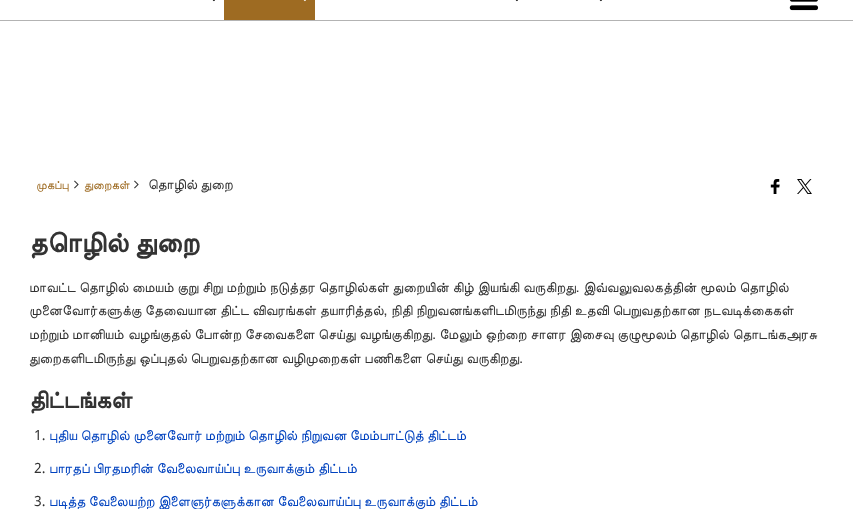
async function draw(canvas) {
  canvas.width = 853;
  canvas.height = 509;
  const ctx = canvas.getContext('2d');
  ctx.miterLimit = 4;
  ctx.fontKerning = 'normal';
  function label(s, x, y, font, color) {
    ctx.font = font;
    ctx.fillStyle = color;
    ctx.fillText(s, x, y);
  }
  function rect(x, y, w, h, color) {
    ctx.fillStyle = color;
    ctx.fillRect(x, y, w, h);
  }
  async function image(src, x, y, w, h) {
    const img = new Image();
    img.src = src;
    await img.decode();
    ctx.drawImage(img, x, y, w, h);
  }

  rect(0, 0, 853, 509, '#fff');
  rect(0, 20, 853, 1, '#b3b3b3');
  await image('assets/img1.png', 212, 0, 3, 2);
  rect(224, 0, 91, 20, '#9e6b22');
  await image('assets/img2.png', 303, 0, 3, 2);
  await image('assets/img1.png', 515, 0, 3, 2);
  await image('assets/img1.png', 599, 0, 3, 2);
  await image('assets/img3.png', 789, 0, 30, 11);
  label('முகப்பு', 36, 189, '12px FreeSans', '#9e6b22');
  await image('assets/img4.png', 74, 180, 5, 9);
  label('துறைகள்', 84, 189, '12px FreeSans', '#9e6b22');
  await image('assets/img4.png', 134, 180, 5, 9);
  label('தொழில் துறை', 148, 189, '14px FreeSans', '#333');
  await image('assets/img5.png', 770, 179, 10, 15);
  await image('assets/img6.png', 797, 179, 15, 15);
  label('தொழில் துறை', 29, 252, 'bold 28px FreeSans', '#333');
  ctx.wordSpacing = '0.2px';
  label('மாவட்ட தொழில் மையம் குறு சிறு மற்றும் நடுத்தர தொழில்கள் துறையின் கிழ் இயங்கி வருகிறது. இவ்வலுவலகத்தின் மூலம் தொழில்', 29, 292, '14px FreeSans', '#333');
  ctx.wordSpacing = '0px';
  label('முனைவோர்களுக்கு தேவையான திட்ட விவரங்கள் தயாரித்தல், நிதி நிறுவனங்களிடமிருந்து நிதி உதவி பெறுவதற்கான நடவடிக்கைகள்', 29, 315, '14px FreeSans', '#333');
  label('மற்றும் மானியம்', 29, 339, '14px FreeSans', '#333');
  ctx.wordSpacing = '0.2px';
  label('வழங்குதல் போன்ற சேவைகளை செய்து வழங்குகிறது. மேலும் ஒற்றை சாளர இசைவு குழுமூலம் தொழில் தொடங்கஅரசு', 128, 339, '14px FreeSans', '#333');
  ctx.wordSpacing = '0.25px';
  label('துறைகளிடமிருந்து ஒப்புதல் பெறுவதற்கான வழிமுறைகள் பணிகளை செய்து வருகிறது.', 29, 363, '14px FreeSans', '#333');
  ctx.wordSpacing = '0px';
  label('திட்டங்கள்', 29, 408, 'bold 24px FreeSans', '#333');
  label('1.', 34, 440, '14px Noto Sans', '#333');
  label('புதிய தொழில் முனைவோர் மற்றும் தொழில் நிறுவன மேம்பாட்டுத் திட்டம்', 49, 440, '14px FreeSans', '#0042bf');
  label('2.', 34, 473, '14px Noto Sans', '#333');
  label('பாரதப் பிரதமரின் வேலைவாய்ப்பு உருவாக்கும் திட்டம்', 49, 473, '14px FreeSans', '#0042bf');
  label('3.', 34, 506, '14px Noto Sans', '#333');
  label('படித்த வேலையற்ற இளைஞர்களுக்கான வேலைவாய்ப்பு உருவாக்கும் திட்டம்', 49, 506, '14px FreeSans', '#0042bf');
}

draw(document.querySelector('canvas'));
